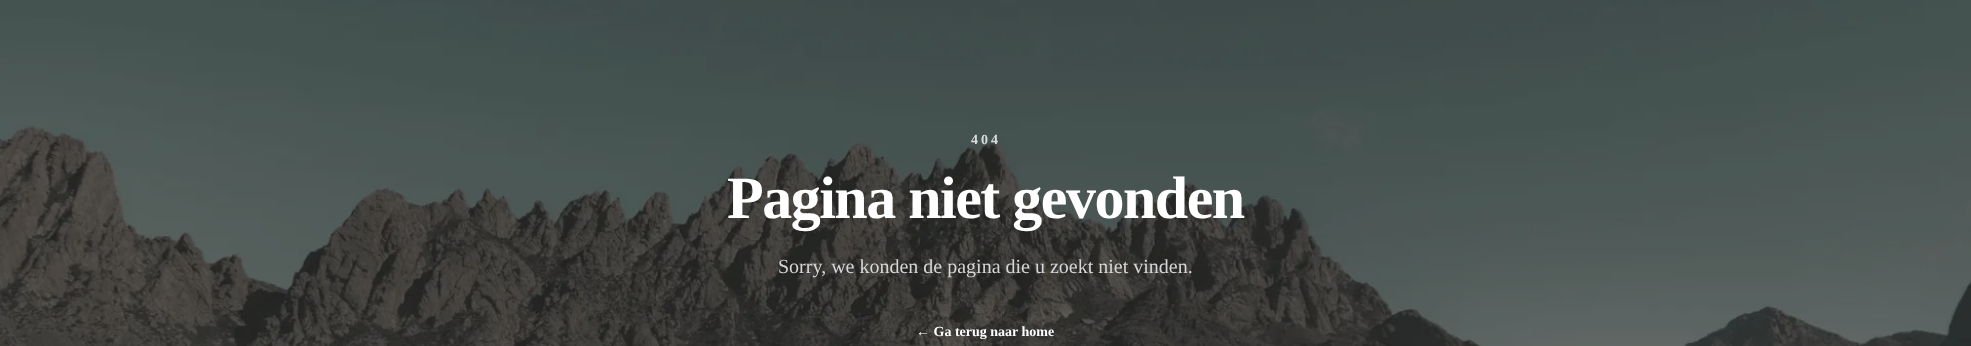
async function draw(canvas) {
  canvas.width = 1971;
  canvas.height = 346;
  const ctx = canvas.getContext('2d');
  ctx.miterLimit = 4;
  ctx.fontKerning = 'normal';
  function label(s, x, y, font, color) {
    ctx.font = font;
    ctx.fillStyle = color;
    ctx.fillText(s, x, y);
  }
  function rect(x, y, w, h, color) {
    ctx.fillStyle = color;
    ctx.fillRect(x, y, w, h);
  }
  async function image(src, x, y, w, h) {
    const img = new Image();
    img.src = src;
    await img.decode();
    ctx.drawImage(img, x, y, w, h);
  }

  rect(0, 0, 1971, 346, '#fff');
  await image('assets/img1.png', 0, 0, 1971, 346);
  ctx.letterSpacing = '3px';
  label('404', 971, 144, 'bold 14px Liberation Serif', '#dadcdc');
  ctx.letterSpacing = '-1.5px';
  label('Pagina niet gevonden', 727, 218, 'bold 60px Liberation Serif', '#fff');
  ctx.letterSpacing = '0px';
  label('Sorry, we konden de pagina die u zoekt niet vinden.', 778, 273, '20px Liberation Serif', '#d6d6d6');
  label('← Ga terug naar home', 916, 336, 'bold 14px Liberation Serif', '#fff');
}

draw(document.querySelector('canvas'));
